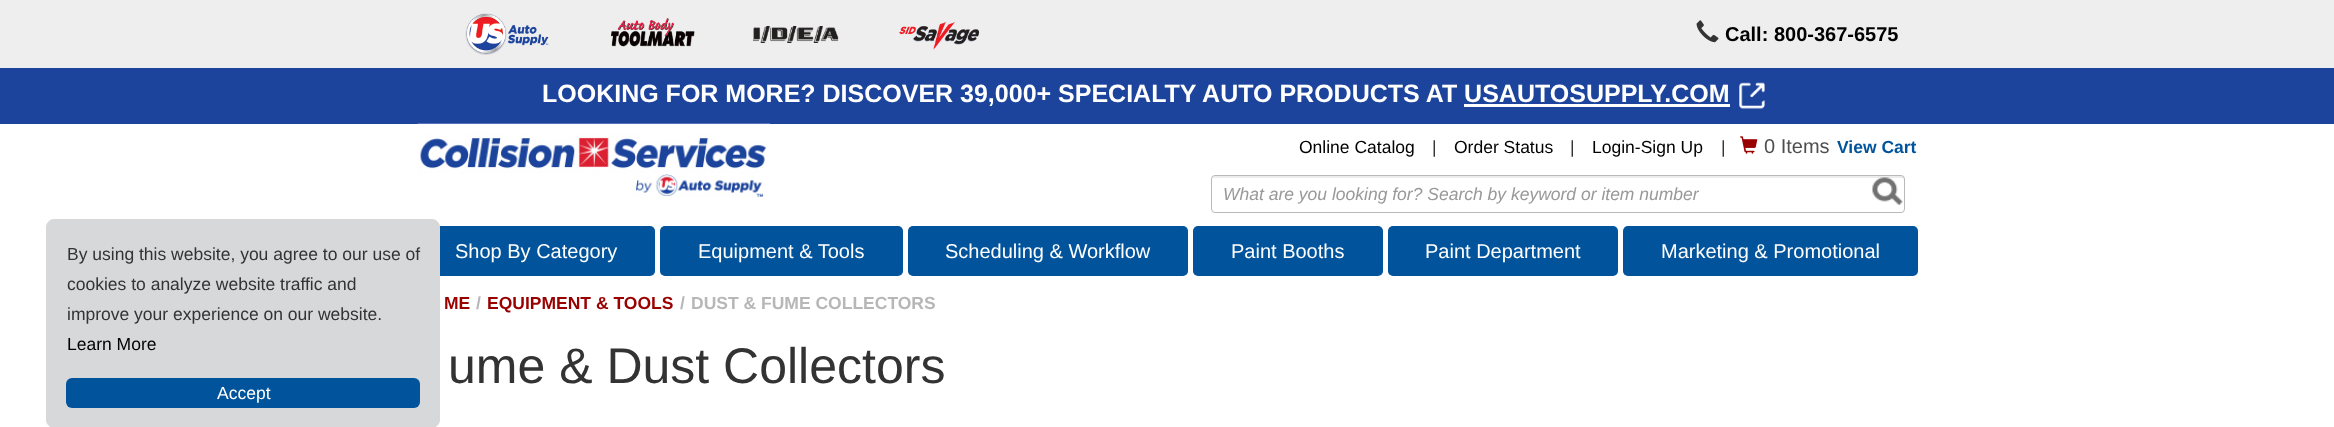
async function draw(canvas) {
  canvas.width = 2334;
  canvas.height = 427;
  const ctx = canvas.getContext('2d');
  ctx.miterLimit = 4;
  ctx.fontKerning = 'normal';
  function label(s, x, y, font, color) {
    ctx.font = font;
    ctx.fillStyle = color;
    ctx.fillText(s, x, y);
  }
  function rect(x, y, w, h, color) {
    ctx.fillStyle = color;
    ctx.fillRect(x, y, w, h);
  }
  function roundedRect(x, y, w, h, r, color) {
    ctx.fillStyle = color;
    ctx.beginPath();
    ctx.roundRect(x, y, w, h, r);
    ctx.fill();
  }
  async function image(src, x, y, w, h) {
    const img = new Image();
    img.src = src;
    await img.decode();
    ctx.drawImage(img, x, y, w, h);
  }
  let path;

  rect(0, 0, 2334, 427, '#fff');
  rect(0, 0, 2334, 68, '#eee');
  await image('assets/img1.png', 465, 13, 84, 42);
  await image('assets/img2.png', 611, 18, 84, 29);
  await image('assets/img3.png', 753, 26, 86, 17);
  await image('assets/img4.png', 899, 22, 80, 28);
  await image('assets/img5.png', 1696, 20, 23, 23);
  label('Call: 800-367-6575', 1725, 41, 'bold 20px Liberation Sans', '#000');
  rect(0, 68, 2334, 56, '#1c449c');
  label('LOOKING FOR MORE? DISCOVER 39,000+ SPECIALTY AUTO PRODUCTS AT USAUTOSUPPLY.COM', 542, 102, 'bold 25px Liberation Sans', '#fff');
  rect(1464, 104, 266, 3, '#fff');
  await image('assets/img6.png', 1739, 82, 26, 27);
  await image('assets/img7.png', 417, 123, 353, 75);
  label('Online Catalog', 1299, 153, '17.5px Liberation Sans', '#000');
  label('|', 1432, 153, '17.5px Liberation Sans', '#333');
  label('Order Status', 1454, 153, '17.5px Liberation Sans', '#000');
  label('|', 1570, 153, '17.5px Liberation Sans', '#333');
  label('Login-Sign Up', 1592, 153, '17.5px Liberation Sans', '#000');
  label('|', 1721, 153, '17.5px Liberation Sans', '#333');
  await image('assets/img8.png', 1740, 136, 18, 18);
  label('0 Items', 1764, 153, '20px Liberation Sans', '#4e4e4e');
  label('View Cart', 1837, 153, 'bold 17.5px Liberation Sans', '#01539c');
  ctx.fillStyle = '#ececec';
  path = new Path2D('M1215 178H1901C1903 178 1904 179 1904 180V178C1904 177 1903 176 1902 176H1216C1214 176 1213 177 1213 178Z');
  ctx.fill(path);
  ctx.beginPath();
  ctx.roundRect(1211.5, 175.5, 693, 37, 3.5);
  ctx.strokeStyle = '#bab8bb';
  ctx.stroke();
  label('What are you looking for? Search by keyword or item number', 1223, 200, 'italic 17.5px Liberation Sans', '#999');
  rect(1902, 178, 1, 1, '#fff');
  await image('assets/img9.png', 1872, 177, 31, 28);
  roundedRect(418, 226, 237, 50, 5, '#01539c');
  ctx.fillStyle = '#d7d8da';
  ctx.beginPath();
  ctx.roundRect(46.5, 219.5, 393, 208, 7.5);
  ctx.fill();
  ctx.strokeStyle = '#d7d8da';
  ctx.stroke();
  label('By using this website, you agree to our use of', 67, 260, '17.5px Liberation Sans', '#333');
  label('cookies to analyze website traffic and', 67, 290, '17.5px Liberation Sans', '#333');
  label('improve your experience on our website.', 67, 320, '17.5px Liberation Sans', '#333');
  label('Learn More', 67, 350, '17.5px Liberation Sans', '#000');
  roundedRect(66, 378, 354, 30, 6, '#01539c');
  label('Accept', 217, 399, '17.5px Liberation Sans', '#fff');
  label('Shop By Category', 455, 258, '20px Liberation Sans', '#fff');
  roundedRect(660, 226, 243, 50, 5, '#01539c');
  label('Equipment & Tools', 698, 258, '20px Liberation Sans', '#fff');
  roundedRect(908, 226, 280, 50, 5, '#01539c');
  label('Scheduling & Workflow', 945, 258, '20px Liberation Sans', '#fff');
  roundedRect(1193, 226, 190, 50, 5, '#01539c');
  label('Paint Booths', 1231, 258, '20px Liberation Sans', '#fff');
  roundedRect(1388, 226, 230, 50, 5, '#01539c');
  label('Paint Department', 1425, 258, '20px Liberation Sans', '#fff');
  roundedRect(1623, 226, 295, 50, 5, '#01539c');
  label('Marketing & Promotional', 1661, 258, '20px Liberation Sans', '#fff');
  label('ME', 444, 309, 'bold 17.5px Liberation Sans', '#900');
  label('/', 476, 309, 'bold 17.5px Liberation Sans', '#b7b7b7');
  label('EQUIPMENT & TOOLS', 487, 309, 'bold 17.5px Liberation Sans', '#900');
  label('/', 680, 309, 'bold 17.5px Liberation Sans', '#b7b7b7');
  label('DUST & FUME COLLECTORS', 691, 309, 'bold 17.5px Liberation Sans', '#b7b7b7');
  label('ume & Dust Collectors', 448, 383, '50px Liberation Sans', '#333');
}

draw(document.querySelector('canvas'));
